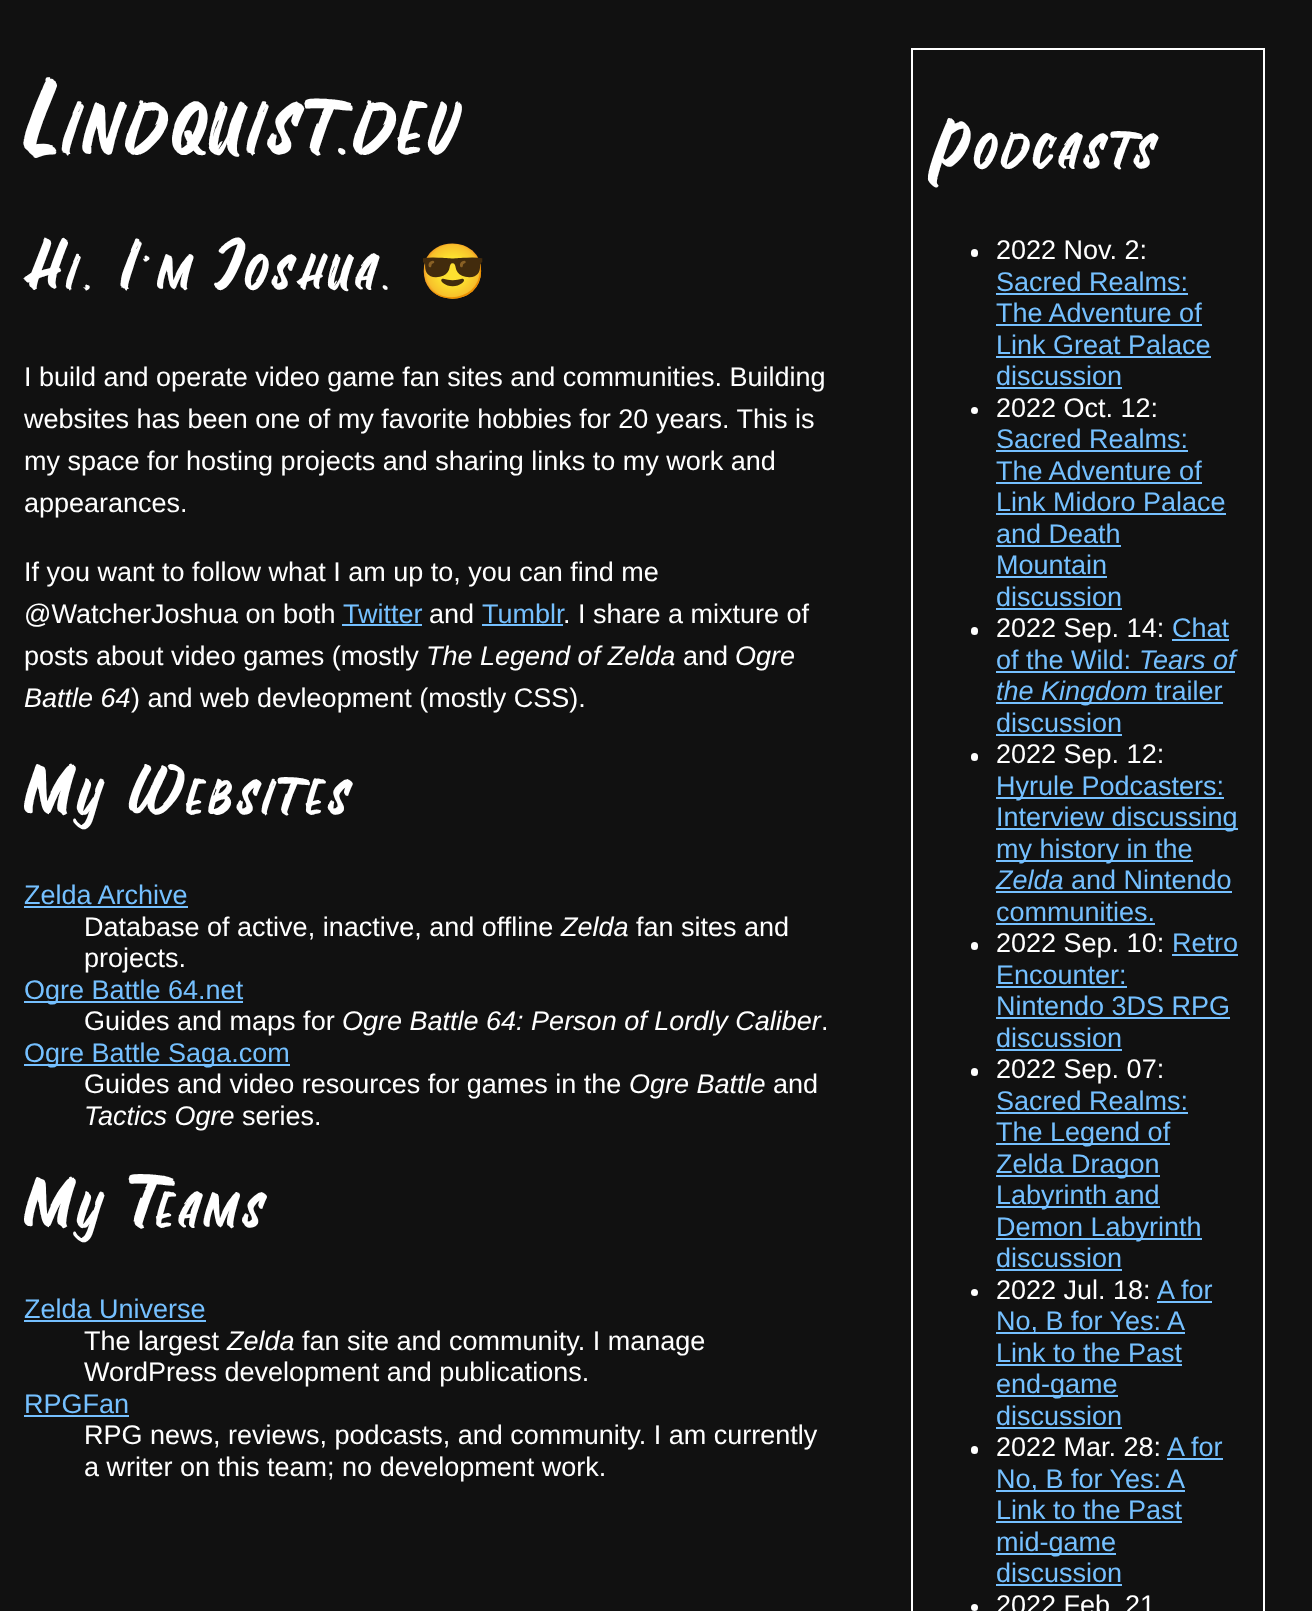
async function draw(canvas) {
  canvas.width = 1312;
  canvas.height = 1611;
  const ctx = canvas.getContext('2d');
  ctx.miterLimit = 4;
  ctx.fontKerning = 'normal';
  function label(s, x, y, font, color) {
    ctx.font = font;
    ctx.fillStyle = color;
    ctx.fillText(s, x, y);
  }
  function rect(x, y, w, h, color) {
    ctx.fillStyle = color;
    ctx.fillRect(x, y, w, h);
  }
  function roundedRect(x, y, w, h, r, color) {
    ctx.fillStyle = color;
    ctx.beginPath();
    ctx.roundRect(x, y, w, h, r);
    ctx.fill();
  }

  rect(0, 0, 1312, 1611, '#111');
  ctx.letterSpacing = '6px';
  label('L', 24, 155, 'bold 81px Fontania', '#fff');
  label('INDQUIST', 62, 155, 'bold 56.5px Fontania', '#fff');
  label('DEV', 353, 155, 'bold 56.5px Fontania', '#fff');
  label('.', 334, 155, 'bold 81px Fontania', '#fff');
  label('H', 24, 290, 'bold 54px Fontania', '#fff');
  label('I', 66, 290, 'bold 38px Fontania', '#fff');
  label(', I\'', 82, 290, 'bold 54px Fontania', '#fff');
  label('M', 157, 290, 'bold 38px Fontania', '#fff');
  label('J', 219, 290, 'bold 54px Fontania', '#fff');
  label('OSHUA', 245, 290, 'bold 38px Fontania', '#fff');
  label('.', 380, 290, 'bold 54px Fontania', '#fff');
  label('😎', 419, 290, 'bold 54px Noto Color Emoji', '#fff');
  ctx.letterSpacing = '0px';
  label('I build and operate video game fan sites and communities. Building', 24, 386, '27px Liberation Sans', '#fff');
  label('websites has been one of my favorite hobbies for 20 years. This is', 24, 428, '27px Liberation Sans', '#fff');
  label('my space for hosting projects and sharing links to my work and', 24, 470, '27px Liberation Sans', '#fff');
  label('appearances.', 24, 512, '27px Liberation Sans', '#fff');
  label('If you want to follow what I am up to, you can find me', 24, 581, '27px Liberation Sans', '#fff');
  label('@WatcherJoshua on both', 24, 623, '27px Liberation Sans', '#fff');
  label('Twitter', 343, 623, '27px Liberation Sans', '#75c0ff');
  rect(342, 624, 80, 2, '#75c0ff');
  label('and', 429, 623, '27px Liberation Sans', '#fff');
  label('Tumblr', 482, 623, '27px Liberation Sans', '#75c0ff');
  rect(482, 624, 81, 2, '#75c0ff');
  label('. I share a mixture of', 563, 623, '27px Liberation Sans', '#fff');
  label('posts about video games (mostly', 24, 665, '27px Liberation Sans', '#fff');
  label('The Legend of Zelda', 426, 665, 'italic 27px Liberation Sans', '#fff');
  label('and', 683, 665, '27px Liberation Sans', '#fff');
  label('Ogre', 735, 665, 'italic 27px Liberation Sans', '#fff');
  label('Battle 64', 24, 707, 'italic 27px Liberation Sans', '#fff');
  label(') and web devleopment (mostly CSS).', 131, 707, '27px Liberation Sans', '#fff');
  ctx.letterSpacing = '6px';
  label('M', 24, 815, 'bold 54px Fontania', '#fff');
  label('Y', 77, 815, 'bold 38px Fontania', '#fff');
  label('W', 129, 815, 'bold 54px Fontania', '#fff');
  label('EBSITES', 186, 815, 'bold 38px Fontania', '#fff');
  ctx.letterSpacing = '0px';
  label('Zelda Archive', 24, 904, '27px Liberation Sans', '#75c0ff');
  rect(24, 906, 164, 2, '#75c0ff');
  label('Database of active, inactive, and offline', 84, 936, '27px Liberation Sans', '#fff');
  label('Zelda', 561, 936, 'italic 27px Liberation Sans', '#fff');
  label('fan sites and', 636, 936, '27px Liberation Sans', '#fff');
  label('projects.', 84, 967, '27px Liberation Sans', '#fff');
  rect(24, 1001, 219, 2, '#75c0ff');
  label('Ogre Battle 64.net', 24, 999, '27px Liberation Sans', '#75c0ff');
  label('Guides and maps for', 84, 1030, '27px Liberation Sans', '#fff');
  label('Ogre Battle 64: Person of Lordly Caliber', 342, 1030, 'italic 27px Liberation Sans', '#fff');
  label('.', 821, 1030, '27px Liberation Sans', '#fff');
  rect(24, 1064, 266, 2, '#75c0ff');
  label('Ogre Battle Saga.com', 24, 1062, '27px Liberation Sans', '#75c0ff');
  label('Guides and video resources for games in the', 84, 1093, '27px Liberation Sans', '#fff');
  label('Ogre Battle', 629, 1093, 'italic 27px Liberation Sans', '#fff');
  label('and', 773, 1093, '27px Liberation Sans', '#fff');
  label('Tactics Ogre', 84, 1125, 'italic 27px Liberation Sans', '#fff');
  label('series.', 242, 1125, '27px Liberation Sans', '#fff');
  ctx.letterSpacing = '6px';
  label('M', 24, 1228, 'bold 54px Fontania', '#fff');
  label('Y', 77, 1228, 'bold 38px Fontania', '#fff');
  label('T', 129, 1228, 'bold 54px Fontania', '#fff');
  label('EAMS', 156, 1228, 'bold 38px Fontania', '#fff');
  ctx.letterSpacing = '0px';
  label('Zelda Universe', 24, 1318, '27px Liberation Sans', '#75c0ff');
  rect(24, 1320, 182, 2, '#75c0ff');
  label('The largest', 84, 1350, '27px Liberation Sans', '#fff');
  label('Zelda', 227, 1350, 'italic 27px Liberation Sans', '#fff');
  label('fan site and community. I manage', 302, 1350, '27px Liberation Sans', '#fff');
  label('WordPress development and publications.', 84, 1381, '27px Liberation Sans', '#fff');
  label('RPGFan', 24, 1413, '27px Liberation Sans', '#75c0ff');
  rect(24, 1415, 105, 2, '#75c0ff');
  label('RPG news, reviews, podcasts, and community. I am currently', 84, 1444, '27px Liberation Sans', '#fff');
  label('a writer on this team; no development work.', 84, 1476, '27px Liberation Sans', '#fff');
  ctx.strokeStyle = '#fff';
  ctx.lineWidth = 2;
  ctx.strokeRect(912, 49, 352, 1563);
  ctx.letterSpacing = '6px';
  label('P', 936, 169, 'bold 54px Fontania', '#fff');
  label('ODCASTS', 974, 169, 'bold 38px Fontania', '#fff');
  roundedRect(971, 249, 7, 8, 3.5, '#fff');
  ctx.letterSpacing = '0px';
  label('2022 Nov. 2:', 996, 259, '27px Liberation Sans', '#fff');
  label('Sacred Realms:', 996, 291, '27px Liberation Sans', '#75c0ff');
  rect(996, 293, 192, 2, '#75c0ff');
  label('The Adventure of', 996, 322, '27px Liberation Sans', '#75c0ff');
  rect(996, 324, 206, 2, '#75c0ff');
  label('Link Great Palace', 996, 354, '27px Liberation Sans', '#75c0ff');
  rect(996, 356, 215, 2, '#75c0ff');
  label('discussion', 996, 385, '27px Liberation Sans', '#75c0ff');
  rect(996, 387, 126, 2, '#75c0ff');
  ctx.fillStyle = '#fff';
  ctx.beginPath();
  ctx.arc(974.5, 410.5, 3.5, 0, 2 * Math.PI);
  ctx.fill();
  label('2022 Oct. 12:', 996, 417, '27px Liberation Sans', '#fff');
  label('Sacred Realms:', 996, 448, '27px Liberation Sans', '#75c0ff');
  rect(996, 450, 192, 2, '#75c0ff');
  label('The Adventure of', 996, 480, '27px Liberation Sans', '#75c0ff');
  rect(996, 482, 206, 2, '#75c0ff');
  label('Link Midoro Palace', 996, 511, '27px Liberation Sans', '#75c0ff');
  rect(996, 513, 230, 2, '#75c0ff');
  label('and Death', 996, 543, '27px Liberation Sans', '#75c0ff');
  rect(996, 545, 125, 2, '#75c0ff');
  label('Mountain', 996, 574, '27px Liberation Sans', '#75c0ff');
  rect(996, 576, 111, 2, '#75c0ff');
  label('discussion', 996, 606, '27px Liberation Sans', '#75c0ff');
  rect(996, 608, 126, 2, '#75c0ff');
  roundedRect(971, 627, 7, 8, 3.5, '#fff');
  label('2022 Sep. 14:', 996, 637, '27px Liberation Sans', '#fff');
  label('Chat', 1172, 637, '27px Liberation Sans', '#75c0ff');
  rect(1172, 639, 57, 2, '#75c0ff');
  label('of the Wild:', 996, 669, '27px Liberation Sans', '#75c0ff');
  rect(996, 671, 239, 2, '#75c0ff');
  label('Tears of', 1139, 669, 'italic 27px Liberation Sans', '#75c0ff');
  rect(996, 702, 227, 2, '#75c0ff');
  label('the Kingdom', 996, 700, 'italic 27px Liberation Sans', '#75c0ff');
  label('trailer', 1155, 700, '27px Liberation Sans', '#75c0ff');
  label('discussion', 996, 732, '27px Liberation Sans', '#75c0ff');
  rect(996, 734, 126, 2, '#75c0ff');
  roundedRect(971, 753, 7, 8, 3.5, '#fff');
  label('2022 Sep. 12:', 996, 763, '27px Liberation Sans', '#fff');
  rect(996, 797, 228, 2, '#75c0ff');
  label('Hyrule Podcasters:', 996, 795, '27px Liberation Sans', '#75c0ff');
  rect(996, 828, 242, 2, '#75c0ff');
  label('Interview discussing', 996, 826, '27px Liberation Sans', '#75c0ff');
  rect(996, 860, 197, 2, '#75c0ff');
  label('my history in the', 996, 858, '27px Liberation Sans', '#75c0ff');
  label('Zelda', 996, 889, 'italic 27px Liberation Sans', '#75c0ff');
  rect(996, 891, 236, 2, '#75c0ff');
  label('and Nintendo', 1071, 889, '27px Liberation Sans', '#75c0ff');
  label('communities.', 996, 921, '27px Liberation Sans', '#75c0ff');
  rect(996, 923, 159, 2, '#75c0ff');
  roundedRect(971, 942, 7, 8, 3.5, '#fff');
  label('2022 Sep. 10:', 996, 952, '27px Liberation Sans', '#fff');
  label('Retro', 1172, 952, '27px Liberation Sans', '#75c0ff');
  rect(1172, 954, 66, 2, '#75c0ff');
  label('Encounter:', 996, 984, '27px Liberation Sans', '#75c0ff');
  rect(996, 986, 131, 2, '#75c0ff');
  label('Nintendo 3DS RPG', 996, 1015, '27px Liberation Sans', '#75c0ff');
  rect(996, 1017, 234, 2, '#75c0ff');
  label('discussion', 996, 1047, '27px Liberation Sans', '#75c0ff');
  rect(996, 1049, 126, 2, '#75c0ff');
  roundedRect(971, 1068, 7, 8, 3.5, '#fff');
  label('2022 Sep. 07:', 996, 1078, '27px Liberation Sans', '#fff');
  label('Sacred Realms:', 996, 1110, '27px Liberation Sans', '#75c0ff');
  rect(996, 1112, 192, 2, '#75c0ff');
  rect(996, 1143, 174, 2, '#75c0ff');
  label('The Legend of', 996, 1141, '27px Liberation Sans', '#75c0ff');
  rect(996, 1175, 164, 2, '#75c0ff');
  label('Zelda Dragon', 996, 1173, '27px Liberation Sans', '#75c0ff');
  rect(996, 1206, 164, 2, '#75c0ff');
  label('Labyrinth and', 996, 1204, '27px Liberation Sans', '#75c0ff');
  rect(996, 1238, 206, 2, '#75c0ff');
  label('Demon Labyrinth', 996, 1236, '27px Liberation Sans', '#75c0ff');
  label('discussion', 996, 1267, '27px Liberation Sans', '#75c0ff');
  rect(996, 1269, 126, 2, '#75c0ff');
  ctx.fillStyle = '#fff';
  ctx.beginPath();
  ctx.arc(974.5, 1292.5, 3.5, 0, 2 * Math.PI);
  ctx.fill();
  label('2022 Jul. 18:', 996, 1299, '27px Liberation Sans', '#fff');
  label('A for', 1157, 1299, '27px Liberation Sans', '#75c0ff');
  rect(1157, 1301, 55, 2, '#75c0ff');
  rect(996, 1332, 189, 2, '#75c0ff');
  label('No, B for Yes: A', 996, 1330, '27px Liberation Sans', '#75c0ff');
  label('Link to the Past', 996, 1362, '27px Liberation Sans', '#75c0ff');
  rect(996, 1364, 186, 2, '#75c0ff');
  rect(996, 1395, 122, 2, '#75c0ff');
  label('end-game', 996, 1393, '27px Liberation Sans', '#75c0ff');
  label('discussion', 996, 1425, '27px Liberation Sans', '#75c0ff');
  rect(996, 1427, 126, 2, '#75c0ff');
  roundedRect(971, 1446, 7, 8, 3.5, '#fff');
  label('2022 Mar. 28:', 996, 1456, '27px Liberation Sans', '#fff');
  label('A for', 1167, 1456, '27px Liberation Sans', '#75c0ff');
  rect(1167, 1458, 56, 2, '#75c0ff');
  rect(996, 1490, 189, 2, '#75c0ff');
  label('No, B for Yes: A', 996, 1488, '27px Liberation Sans', '#75c0ff');
  label('Link to the Past', 996, 1519, '27px Liberation Sans', '#75c0ff');
  rect(996, 1521, 186, 2, '#75c0ff');
  rect(996, 1553, 120, 2, '#75c0ff');
  label('mid-game', 996, 1551, '27px Liberation Sans', '#75c0ff');
  label('discussion', 996, 1582, '27px Liberation Sans', '#75c0ff');
  rect(996, 1584, 126, 2, '#75c0ff');
  ctx.fillStyle = '#fff';
  ctx.beginPath();
  ctx.arc(974.5, 1607.5, 3.5, 0, 2 * Math.PI);
  ctx.fill();
  label('2022 Feb. 21', 996, 1614, '27px Liberation Sans', '#fff');
}

draw(document.querySelector('canvas'));
